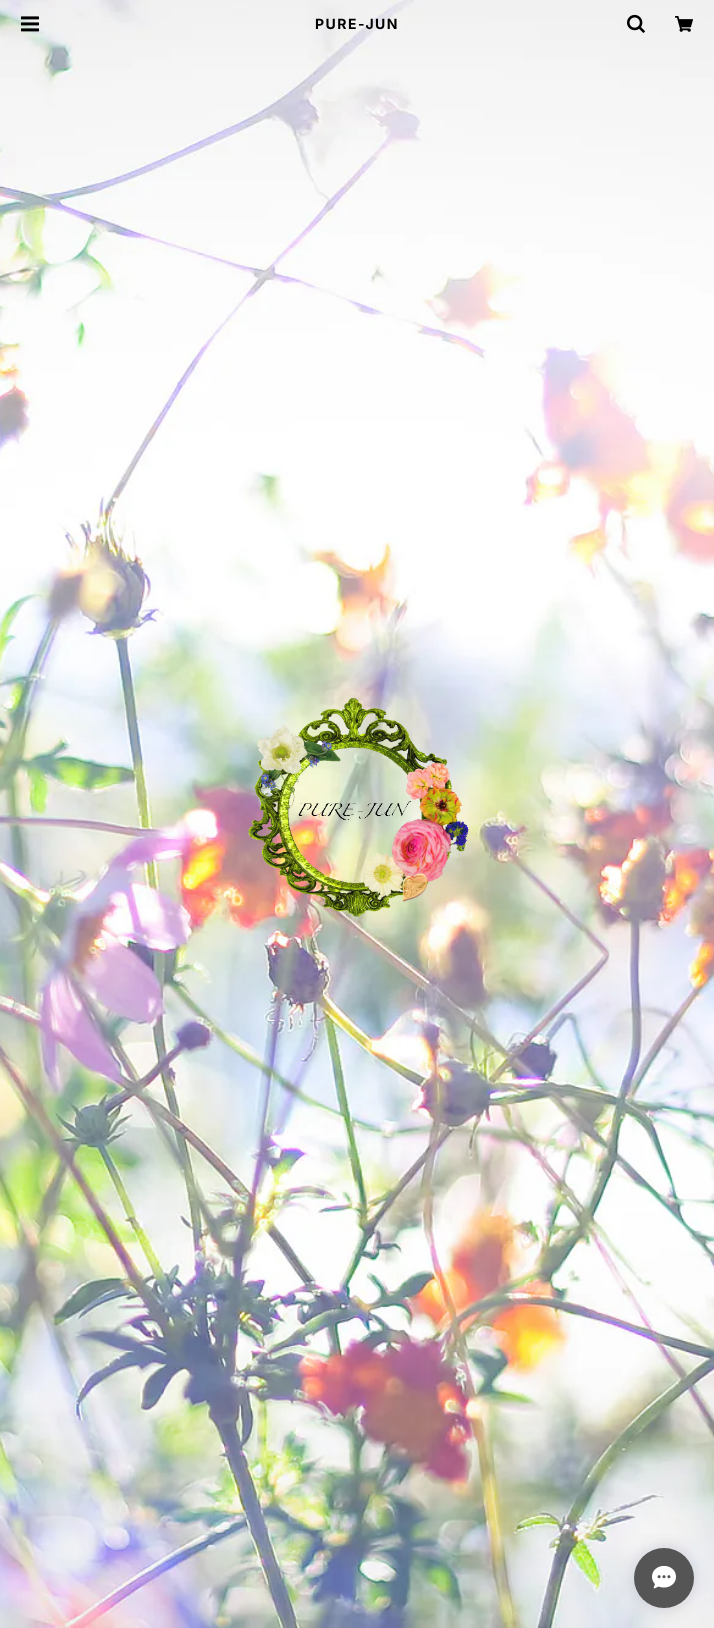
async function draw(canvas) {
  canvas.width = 714;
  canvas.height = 1628;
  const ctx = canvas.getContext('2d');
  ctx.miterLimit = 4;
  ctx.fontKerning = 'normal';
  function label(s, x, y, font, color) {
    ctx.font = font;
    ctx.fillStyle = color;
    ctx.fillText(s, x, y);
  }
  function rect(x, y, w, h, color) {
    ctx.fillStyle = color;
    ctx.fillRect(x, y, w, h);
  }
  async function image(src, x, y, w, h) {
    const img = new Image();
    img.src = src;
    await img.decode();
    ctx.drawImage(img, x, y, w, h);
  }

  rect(0, 0, 714, 1628, '#fff');
  await image('assets/img1.png', 0, 0, 714, 1628);
  await image('assets/img2.png', 248, 698, 221, 219);
  await image('assets/img3.png', 21, 16, 18, 16);
  ctx.letterSpacing = '1.5px';
  label('PURE-JUN', 315, 29, 'bold 14px Inter', '#000');
  await image('assets/img4.png', 627, 14, 18, 19);
  await image('assets/img5.png', 675, 16, 18, 16);
  ctx.fillStyle = '#33425833';
  ctx.filter = 'blur(7.5px)';
  ctx.beginPath();
  ctx.roundRect(634, 1548, 60, 60, 30);
  ctx.fill();
  ctx.filter = 'none';
  ctx.fillStyle = '#555';
  ctx.beginPath();
  ctx.arc(664, 1578, 30, 0, 2 * Math.PI);
  ctx.fill();
  await image('assets/img6.png', 652, 1565, 24, 24);
}

draw(document.querySelector('canvas'));
